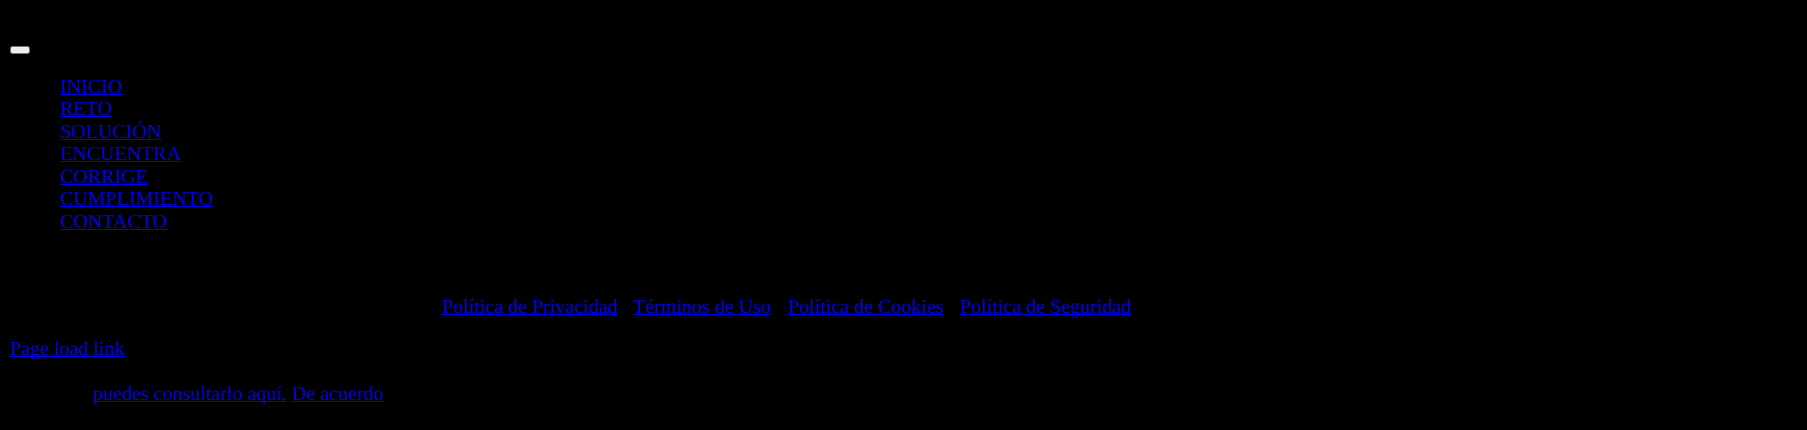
async function draw(canvas) {
  canvas.width = 1807;
  canvas.height = 430;
  const ctx = canvas.getContext('2d');
  ctx.miterLimit = 4;
  ctx.fontKerning = 'normal';
  function label(s, x, y, font, color) {
    ctx.font = font;
    ctx.fillStyle = color;
    ctx.fillText(s, x, y);
  }
  function rect(x, y, w, h, color) {
    ctx.fillStyle = color;
    ctx.fillRect(x, y, w, h);
  }

  rect(0, 0, 1807, 430, '#000');
  ctx.fillStyle = '#efefef';
  ctx.beginPath();
  ctx.roundRect(10.5, 46.5, 19, 7, 2);
  ctx.fill();
  ctx.strokeStyle = '#767676';
  ctx.stroke();
  label('INICIO', 60, 93, '20px Liberation Serif', '#00e');
  rect(60, 94, 63, 1, '#00e');
  label('RETO', 60, 115, '20px Liberation Serif', '#00e');
  rect(60, 116, 51, 1, '#00e');
  label('SOLUCIÓN', 60, 138, '20px Liberation Serif', '#00e');
  rect(60, 139, 101, 1, '#00e');
  label('ENCUENTRA', 60, 160, '20px Liberation Serif', '#00e');
  rect(60, 161, 121, 1, '#00e');
  label('CORRIGE', 60, 183, '20px Liberation Serif', '#00e');
  rect(60, 184, 88, 1, '#00e');
  label('CUMPLIMIENTO', 60, 205, '20px Liberation Serif', '#00e');
  rect(60, 206, 153, 1, '#00e');
  label('CONTACTO', 60, 228, '20px Liberation Serif', '#00e');
  rect(60, 229, 108, 1, '#00e');
  label('Política de Privacidad', 442, 313, '20px Liberation Serif', '#00e');
  rect(441, 314, 177, 1, '#00e');
  label('Términos de Uso', 633, 313, '20px Liberation Serif', '#00e');
  rect(634, 314, 137, 1, '#00e');
  label('Política de Cookies', 788, 313, '20px Liberation Serif', '#00e');
  rect(788, 314, 156, 1, '#00e');
  rect(960, 314, 171, 1, '#00e');
  label('Política de Seguridad', 960, 313, '20px Liberation Serif', '#00e');
  rect(10, 356, 115, 1, '#00e');
  label('Page load link', 10, 355, '20px Liberation Serif', '#00e');
  rect(93, 401, 193, 1, '#00e');
  label('puedes consultarlo aquí. De acuerdo', 93, 400, '20px Liberation Serif', '#00e');
  rect(291, 401, 93, 1, '#00e');
}

draw(document.querySelector('canvas'));
